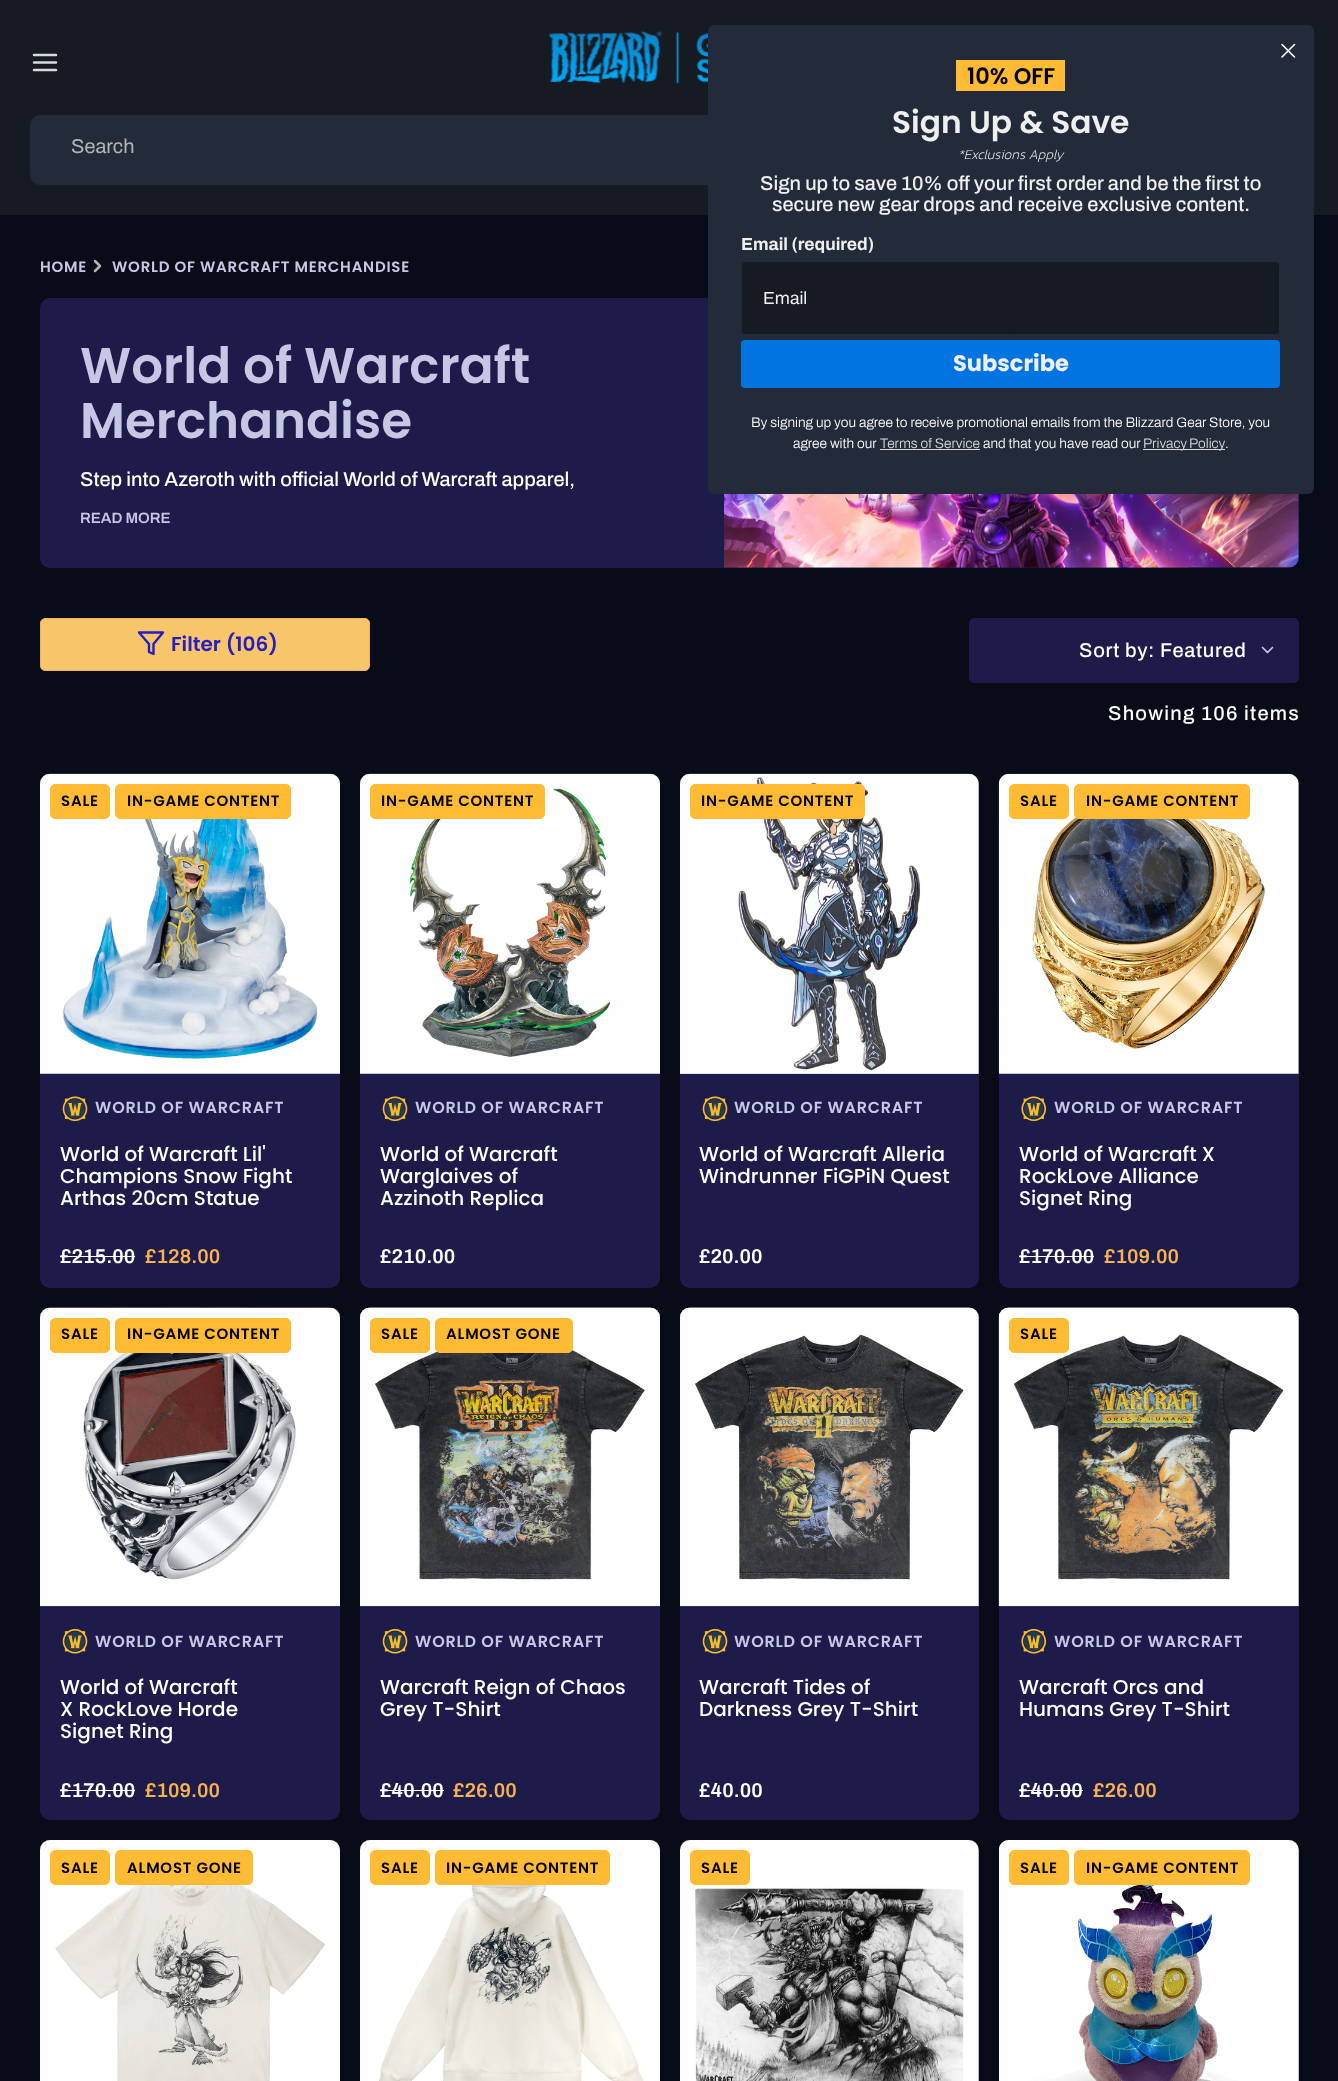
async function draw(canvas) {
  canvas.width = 1338;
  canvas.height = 2081;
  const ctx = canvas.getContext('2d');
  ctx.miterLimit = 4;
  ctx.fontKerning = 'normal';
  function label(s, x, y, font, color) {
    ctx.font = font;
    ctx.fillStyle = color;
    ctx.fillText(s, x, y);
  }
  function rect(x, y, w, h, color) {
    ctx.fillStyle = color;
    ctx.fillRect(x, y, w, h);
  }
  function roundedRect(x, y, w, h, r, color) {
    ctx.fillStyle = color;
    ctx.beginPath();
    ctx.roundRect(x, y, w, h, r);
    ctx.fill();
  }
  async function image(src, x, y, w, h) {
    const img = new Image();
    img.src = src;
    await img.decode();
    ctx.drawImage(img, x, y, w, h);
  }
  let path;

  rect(0, 0, 1338, 2081, '#151a23');
  path = new Path2D('M34 62.5H56M34 55H56M34 70H56');
  ctx.strokeStyle = '#d9d9da';
  ctx.lineWidth = 2.5;
  ctx.lineCap = 'round';
  ctx.lineJoin = 'round';
  ctx.stroke(path);
  await image('assets/img1.png', 548, 31, 160, 53);
  roundedRect(30, 115, 1279, 70, 10, '#232a39');
  label('Search', 71, 153, '20px Archivo', '#b3b4b6');
  rect(0, 215, 1338, 1866, '#080b18');
  roundedRect(40, 298, 1259, 270, 10, '#1c1b4a');
  roundedRect(708, 25, 606, 469, 6, '#232a3a');
  path = new Path2D('M1282 44.5L1294.5 57M1282 57L1294.5 44.5Z');
  ctx.strokeStyle = '#fff';
  ctx.lineWidth = 1.6;
  ctx.stroke(path);
  rect(956, 60, 109, 31, '#ffbb34');
  label('10% OFF', 967, 84, '600 22.5px Poppins', '#000');
  label('Sign Up & Save', 892, 133, '600 31.25px Poppins', '#efefef');
  label('*Exclusions Apply', 958, 159, 'italic 200 13.75px Kanit', '#efefef');
  label('Sign up to save 10% off your first order and be the first to', 760, 190, '500 20px Archivo', '#efefef');
  label('secure new gear drops and receive exclusive content.', 772, 211, '500 20px Archivo', '#efefef');
  label('Email (required)', 741, 250, 'bold 17.5px Archivo', '#efefef');
  ctx.fillStyle = '#161a23';
  ctx.beginPath();
  ctx.roundRect(741.5, 261.5, 538, 73, 3.5);
  ctx.fill();
  ctx.strokeStyle = '#232a3a';
  ctx.lineWidth = 1;
  ctx.lineJoin = 'miter';
  ctx.stroke();
  label('Email', 763, 304, '17.5px Archivo', '#efefef');
  roundedRect(741, 340, 539, 48, 4, '#0174e2');
  label('Subscribe', 953, 371, 'bold 22.5px Poppins', '#efefef');
  label('By signing up you agree to receive promotional emails from the Blizzard Gear Store, you', 751, 427, '300 13.75px Archivo', '#fff');
  label('agree with our', 793, 448, '300 13.75px Archivo', '#fff');
  rect(880, 449, 100, 1, '#d9d9da');
  label('Terms of Service', 880, 448, '300 13.75px Archivo', '#d9d9da');
  label('and that you have read our', 983, 448, '300 13.75px Archivo', '#fff');
  rect(1143, 449, 82, 1, '#d9d9da');
  ctx.wordSpacing = '-1px';
  label('Privacy Policy', 1143, 448, '300 13.75px Archivo', '#d9d9da');
  ctx.wordSpacing = '0px';
  label('.', 1225, 448, '300 13.75px Archivo', '#fff');
  ctx.letterSpacing = '0.75px';
  label('HOME', 40, 272, '600 15px Poppins', '#c6c7e5');
  path = new Path2D('M95 271L100 266L95 261');
  ctx.strokeStyle = '#b3b4b6';
  ctx.lineWidth = 2.5;
  ctx.lineJoin = 'round';
  ctx.stroke(path);
  label('WORLD OF WARCRAFT MERCHANDISE', 112, 272, '600 15px Poppins', '#c6c7e5');
  ctx.letterSpacing = '0px';
  label('World of Warcraft', 80, 383, '600 50px Poppins', '#c6c7e5');
  label('Merchandise', 80, 438, '600 50px Poppins', '#c6c7e5');
  label('Step into Azeroth with official World of Warcraft apparel,', 80, 486, '500 20px Archivo', '#fff');
  label('READ MORE', 80, 523, '600 15px Archivo', '#c6c7e5');
  await image('assets/img2.png', 724, 494, 575, 74);
  ctx.fillStyle = '#f8c66a';
  ctx.beginPath();
  ctx.roundRect(40.5, 618.5, 329, 52, 4.5);
  ctx.fill();
  ctx.strokeStyle = '#f5b153';
  ctx.lineWidth = 1;
  ctx.lineJoin = 'miter';
  ctx.stroke();
  path = new Path2D('M163 632.5H139L149 644V652L153.5 654V644Z');
  ctx.strokeStyle = '#261dc2';
  ctx.lineWidth = 2.4;
  ctx.lineJoin = 'round';
  ctx.stroke(path);
  label('Filter (106)', 171, 651, '600 20px Poppins', '#261dc2');
  ctx.fillStyle = '#1c1b4a';
  ctx.beginPath();
  ctx.roundRect(969.5, 618.5, 329, 64, 4.5);
  ctx.fill();
  ctx.strokeStyle = '#1c1b4a';
  ctx.lineWidth = 1;
  ctx.lineJoin = 'miter';
  ctx.stroke();
  ctx.letterSpacing = '0.75px';
  label('Sort by: Featured', 1079, 657, '500 20px Archivo', '#fff');
  path = new Path2D('M1262.5 647.5L1267.5 652.5L1272.5 647.5');
  ctx.strokeStyle = '#c6c7e5';
  ctx.lineWidth = 1.7;
  ctx.lineJoin = 'round';
  ctx.stroke(path);
  ctx.letterSpacing = '1.25px';
  label('Showing 106 items', 1108, 720, '500 20px Archivo', '#fff');
  await image('assets/img3.png', 40, 773, 300, 11);
  roundedRect(40, 774, 300, 514, 10, '#1c1b4a');
  await image('assets/img4.png', 40, 773, 300, 301);
  ctx.fillStyle = '#fb3';
  ctx.beginPath();
  ctx.roundRect(50.5, 784.5, 59, 34, 4.5);
  ctx.fill();
  ctx.strokeStyle = '#fb3';
  ctx.lineWidth = 1;
  ctx.lineJoin = 'miter';
  ctx.stroke();
  ctx.letterSpacing = '0.75px';
  label('SALE', 61, 806, '600 15px Poppins', '#000');
  ctx.fillStyle = '#fb3';
  ctx.beginPath();
  ctx.roundRect(115.5, 784.5, 175, 34, 4.5);
  ctx.fill();
  ctx.stroke();
  label('IN-GAME CONTENT', 127, 806, '600 15px Poppins', '#000');
  await image('assets/img5.png', 62, 1096, 26, 26);
  label('WORLD OF WARCRAFT', 95, 1113, '600 16px Poppins', '#c6c7e5');
  ctx.letterSpacing = '0px';
  label('World of Warcraft Lil\'', 60, 1161, '500 20px Poppins', '#fff');
  label('Champions Snow Fight', 60, 1183, '500 20px Poppins', '#fff');
  label('Arthas 20cm Statue', 60, 1205, '500 20px Poppins', '#fff');
  label('£215.00', 60, 1263, '600 20px Archivo', '#fff');
  rect(60, 1256, 75, 1, '#fff');
  label('£128.00', 145, 1263, '600 20px Archivo', '#f5b153');
  await image('assets/img6.png', 360, 773, 300, 11);
  roundedRect(360, 774, 300, 514, 10, '#1c1b4a');
  await image('assets/img7.png', 360, 773, 300, 301);
  ctx.fillStyle = '#fb3';
  ctx.beginPath();
  ctx.roundRect(370.5, 784.5, 174, 34, 4.5);
  ctx.fill();
  ctx.stroke();
  ctx.letterSpacing = '0.75px';
  label('IN-GAME CONTENT', 381, 806, '600 15px Poppins', '#000');
  await image('assets/img5.png', 382, 1096, 26, 26);
  label('WORLD OF WARCRAFT', 415, 1113, '600 16px Poppins', '#c6c7e5');
  ctx.letterSpacing = '0px';
  label('World of Warcraft', 380, 1161, '500 20px Poppins', '#fff');
  label('Warglaives of', 380, 1183, '500 20px Poppins', '#fff');
  label('Azzinoth Replica', 380, 1205, '500 20px Poppins', '#fff');
  label('£210.00', 380, 1263, '600 20px Archivo', '#fff');
  await image('assets/img8.png', 680, 773, 299, 11);
  roundedRect(680, 774, 299, 514, 10, '#1c1b4a');
  await image('assets/img9.png', 680, 773, 299, 301);
  ctx.fillStyle = '#fb3';
  ctx.beginPath();
  ctx.roundRect(690.5, 784.5, 174, 34, 4.5);
  ctx.fill();
  ctx.stroke();
  ctx.letterSpacing = '0.75px';
  label('IN-GAME CONTENT', 701, 806, '600 15px Poppins', '#000');
  await image('assets/img5.png', 702, 1096, 26, 26);
  label('WORLD OF WARCRAFT', 734, 1113, '600 16px Poppins', '#c6c7e5');
  ctx.letterSpacing = '0px';
  label('World of Warcraft Alleria', 699, 1161, '500 20px Poppins', '#fff');
  label('Windrunner FiGPiN Quest', 699, 1183, '500 20px Poppins', '#fff');
  label('£20.00', 699, 1263, '600 20px Archivo', '#fff');
  await image('assets/img11.png', 998, 774, 301, 300);
  roundedRect(999, 774, 300, 514, 10, '#1c1b4a');
  await image('assets/img10.png', 998, 773, 301, 301);
  ctx.fillStyle = '#fb3';
  ctx.beginPath();
  ctx.roundRect(1009.5, 784.5, 59, 34, 4.5);
  ctx.fill();
  ctx.stroke();
  ctx.letterSpacing = '0.75px';
  label('SALE', 1020, 806, '600 15px Poppins', '#000');
  ctx.fillStyle = '#fb3';
  ctx.beginPath();
  ctx.roundRect(1074.5, 784.5, 175, 34, 4.5);
  ctx.fill();
  ctx.stroke();
  label('IN-GAME CONTENT', 1086, 806, '600 15px Poppins', '#000');
  await image('assets/img12.png', 1021, 1096, 26, 26);
  label('WORLD OF WARCRAFT', 1054, 1113, '600 16px Poppins', '#c6c7e5');
  ctx.letterSpacing = '0px';
  label('World of Warcraft X', 1019, 1161, '500 20px Poppins', '#fff');
  label('RockLove Alliance', 1019, 1183, '500 20px Poppins', '#fff');
  label('Signet Ring', 1019, 1205, '500 20px Poppins', '#fff');
  label('£170.00', 1019, 1263, '600 20px Archivo', '#fff');
  rect(1019, 1256, 75, 1, '#fff');
  label('£109.00', 1104, 1263, '600 20px Archivo', '#f5b153');
  await image('assets/img13.png', 40, 1307, 300, 11);
  roundedRect(40, 1308, 300, 512, 10, '#1c1b4a');
  await image('assets/img14.png', 40, 1307, 300, 300);
  ctx.fillStyle = '#fb3';
  ctx.beginPath();
  ctx.roundRect(50.5, 1318.5, 59, 34, 4.5);
  ctx.fill();
  ctx.stroke();
  ctx.letterSpacing = '0.75px';
  label('SALE', 61, 1339, '600 15px Poppins', '#000');
  ctx.fillStyle = '#fb3';
  ctx.beginPath();
  ctx.roundRect(115.5, 1318.5, 175, 34, 4.5);
  ctx.fill();
  ctx.stroke();
  label('IN-GAME CONTENT', 127, 1339, '600 15px Poppins', '#000');
  await image('assets/img15.png', 62, 1628, 26, 26);
  label('WORLD OF WARCRAFT', 95, 1647, '600 16px Poppins', '#c6c7e5');
  ctx.letterSpacing = '0px';
  label('World of Warcraft', 60, 1694, '500 20px Poppins', '#fff');
  label('X RockLove Horde', 60, 1716, '500 20px Poppins', '#fff');
  label('Signet Ring', 60, 1738, '500 20px Poppins', '#fff');
  label('£170.00', 60, 1797, '600 20px Archivo', '#fff');
  rect(60, 1790, 75, 1, '#fff');
  label('£109.00', 145, 1797, '600 20px Archivo', '#f5b153');
  await image('assets/img16.png', 360, 1307, 300, 11);
  roundedRect(360, 1308, 300, 512, 10, '#1c1b4a');
  await image('assets/img17.png', 360, 1307, 300, 300);
  ctx.fillStyle = '#fb3';
  ctx.beginPath();
  ctx.roundRect(370.5, 1318.5, 59, 34, 4.5);
  ctx.fill();
  ctx.stroke();
  ctx.letterSpacing = '0.75px';
  label('SALE', 381, 1339, '600 15px Poppins', '#000');
  ctx.fillStyle = '#fb3';
  ctx.beginPath();
  ctx.roundRect(435.5, 1318.5, 137, 34, 4.5);
  ctx.fill();
  ctx.stroke();
  label('ALMOST GONE', 446, 1339, '600 15px Poppins', '#000');
  await image('assets/img15.png', 382, 1628, 26, 26);
  label('WORLD OF WARCRAFT', 415, 1647, '600 16px Poppins', '#c6c7e5');
  ctx.letterSpacing = '0px';
  label('Warcraft Reign of Chaos', 380, 1694, '500 20px Poppins', '#fff');
  label('Grey T-Shirt', 380, 1716, '500 20px Poppins', '#fff');
  label('£40.00', 380, 1797, '600 20px Archivo', '#fff');
  rect(380, 1790, 64, 1, '#fff');
  label('£26.00', 453, 1797, '600 20px Archivo', '#f5b153');
  await image('assets/img18.png', 680, 1307, 299, 11);
  roundedRect(680, 1308, 299, 512, 10, '#1c1b4a');
  await image('assets/img19.png', 680, 1307, 299, 300);
  await image('assets/img15.png', 702, 1628, 26, 26);
  ctx.letterSpacing = '0.75px';
  label('WORLD OF WARCRAFT', 734, 1647, '600 16px Poppins', '#c6c7e5');
  ctx.letterSpacing = '0px';
  label('Warcraft Tides of', 699, 1694, '500 20px Poppins', '#fff');
  label('Darkness Grey T-Shirt', 699, 1716, '500 20px Poppins', '#fff');
  label('£40.00', 699, 1797, '600 20px Archivo', '#fff');
  await image('assets/img20.png', 998, 1307, 301, 299);
  roundedRect(999, 1308, 300, 512, 10, '#1c1b4a');
  await image('assets/img21.png', 998, 1307, 301, 300);
  ctx.fillStyle = '#fb3';
  ctx.beginPath();
  ctx.roundRect(1009.5, 1318.5, 59, 34, 4.5);
  ctx.fill();
  ctx.stroke();
  ctx.letterSpacing = '0.75px';
  label('SALE', 1020, 1339, '600 15px Poppins', '#000');
  await image('assets/img22.png', 1021, 1628, 26, 26);
  label('WORLD OF WARCRAFT', 1054, 1647, '600 16px Poppins', '#c6c7e5');
  ctx.letterSpacing = '0px';
  label('Warcraft Orcs and', 1019, 1694, '500 20px Poppins', '#fff');
  label('Humans Grey T-Shirt', 1019, 1716, '500 20px Poppins', '#fff');
  label('£40.00', 1019, 1797, '600 20px Archivo', '#fff');
  rect(1019, 1790, 64, 1, '#fff');
  label('£26.00', 1093, 1797, '600 20px Archivo', '#f5b153');
  await image('assets/img23.png', 40, 1840, 300, 10);
  roundedRect(40, 1840, 300, 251, 10, '#1c1b4a');
  await image('assets/img24.png', 40, 1840, 300, 241);
  ctx.fillStyle = '#fb3';
  ctx.beginPath();
  ctx.roundRect(50.5, 1850.5, 59, 34, 4.5);
  ctx.fill();
  ctx.stroke();
  ctx.letterSpacing = '0.75px';
  label('SALE', 61, 1873, '600 15px Poppins', '#000');
  ctx.fillStyle = '#fb3';
  ctx.beginPath();
  ctx.roundRect(115.5, 1850.5, 137, 34, 4.5);
  ctx.fill();
  ctx.stroke();
  label('ALMOST GONE', 127, 1873, '600 15px Poppins', '#000');
  await image('assets/img23.png', 360, 1840, 300, 10);
  roundedRect(360, 1840, 300, 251, 10, '#1c1b4a');
  await image('assets/img25.png', 360, 1840, 300, 241);
  ctx.fillStyle = '#fb3';
  ctx.beginPath();
  ctx.roundRect(370.5, 1850.5, 59, 34, 4.5);
  ctx.fill();
  ctx.stroke();
  label('SALE', 381, 1873, '600 15px Poppins', '#000');
  ctx.fillStyle = '#fb3';
  ctx.beginPath();
  ctx.roundRect(435.5, 1850.5, 174, 34, 4.5);
  ctx.fill();
  ctx.stroke();
  label('IN-GAME CONTENT', 446, 1873, '600 15px Poppins', '#000');
  await image('assets/img26.png', 680, 1840, 299, 10);
  roundedRect(680, 1840, 299, 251, 10, '#1c1b4a');
  await image('assets/img27.png', 680, 1840, 299, 241);
  ctx.fillStyle = '#fb3';
  ctx.beginPath();
  ctx.roundRect(690.5, 1850.5, 59, 34, 4.5);
  ctx.fill();
  ctx.stroke();
  label('SALE', 701, 1873, '600 15px Poppins', '#000');
  await image('assets/img28.png', 999, 1840, 300, 10);
  roundedRect(999, 1840, 300, 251, 10, '#1c1b4a');
  await image('assets/img29.png', 999, 1840, 300, 241);
  ctx.fillStyle = '#fb3';
  ctx.beginPath();
  ctx.roundRect(1009.5, 1850.5, 59, 34, 4.5);
  ctx.fill();
  ctx.stroke();
  label('SALE', 1020, 1873, '600 15px Poppins', '#000');
  ctx.fillStyle = '#fb3';
  ctx.beginPath();
  ctx.roundRect(1074.5, 1850.5, 175, 34, 4.5);
  ctx.fill();
  ctx.stroke();
  label('IN-GAME CONTENT', 1086, 1873, '600 15px Poppins', '#000');
}

draw(document.querySelector('canvas'));
